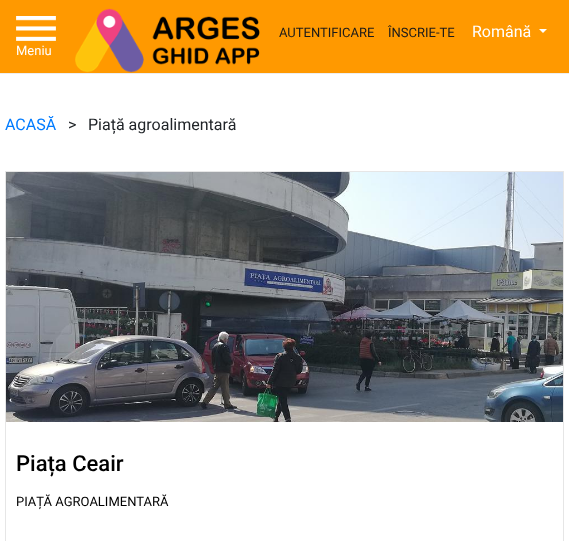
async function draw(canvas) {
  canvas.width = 569;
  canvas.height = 541;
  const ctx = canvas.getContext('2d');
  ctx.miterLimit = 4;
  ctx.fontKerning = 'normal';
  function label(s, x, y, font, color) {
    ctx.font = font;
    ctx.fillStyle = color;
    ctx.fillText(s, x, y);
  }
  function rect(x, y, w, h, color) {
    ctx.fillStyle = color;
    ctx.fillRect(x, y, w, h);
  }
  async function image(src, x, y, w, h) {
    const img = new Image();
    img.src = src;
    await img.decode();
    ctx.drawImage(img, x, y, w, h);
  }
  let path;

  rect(0, 0, 569, 541, '#fff');
  rect(0, 0, 569, 73, '#f90');
  await image('assets/img1.png', 75, 8, 185, 65);
  label('AUTENTIFICARE', 279, 37, '13px Roboto', '#1a1a1a');
  label('ÎNSCRIE-TE', 388, 37, '13px Roboto', '#1a1a1a');
  label('Română', 472, 37, '16px Roboto', '#fff');
  path = new Path2D('M539 29H547L543 33Z');
  ctx.fill(path);
  await image('assets/img2.png', 16, 16, 40, 25);
  label('Meniu', 16, 55, '13px Roboto', '#fff');
  rect(0, 73, 569, 1, '#eee');
  label('ACASĂ', 5, 130, '16px Roboto', '#007bff');
  label('>', 68, 130, '16px Roboto', '#212529');
  label('Piață agroalimentară', 88, 130, '16px Roboto', '#212529');
  ctx.strokeStyle = '#e6e6e6';
  ctx.strokeRect(5.5, 171.5, 558, 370);
  await image('assets/img3.png', 6, 172, 557, 250);
  label('Piața Ceair', 16, 471, '500 22px Roboto', '#000');
  label('PIAȚĂ AGROALIMENTARĂ', 16, 506, '13px Roboto', '#000');
}

draw(document.querySelector('canvas'));
